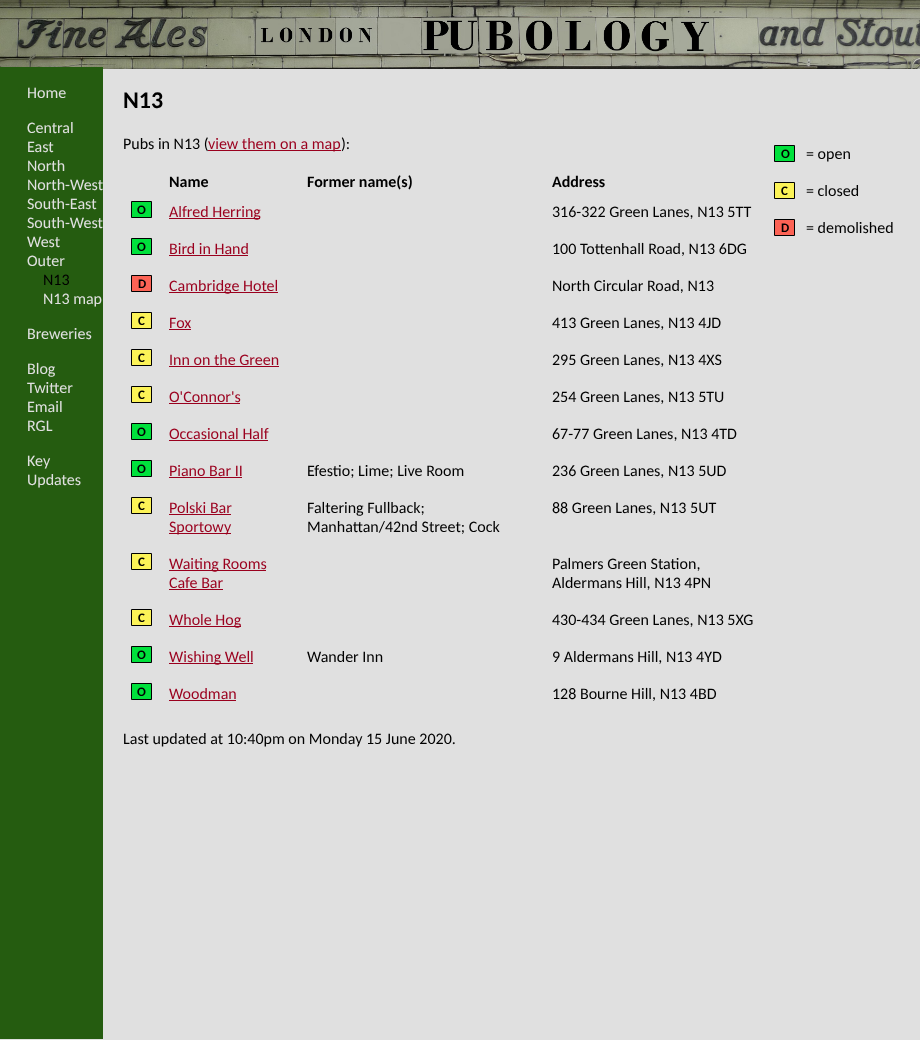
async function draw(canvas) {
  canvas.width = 920;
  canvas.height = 1040;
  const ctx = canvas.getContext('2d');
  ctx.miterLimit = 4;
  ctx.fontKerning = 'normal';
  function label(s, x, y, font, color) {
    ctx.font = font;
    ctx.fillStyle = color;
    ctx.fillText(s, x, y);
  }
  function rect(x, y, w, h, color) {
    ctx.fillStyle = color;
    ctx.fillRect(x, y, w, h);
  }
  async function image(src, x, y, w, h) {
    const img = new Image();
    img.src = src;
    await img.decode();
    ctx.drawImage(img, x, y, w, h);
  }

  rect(0, 0, 920, 1040, '#e0e0e0');
  await image('assets/img1.png', 0, 0, 920, 69);
  rect(0, 67, 103, 972, '#255c10');
  label('Home', 27, 98, '16px Carlito', '#e0e0e0');
  label('Central', 27, 133, '16px Carlito', '#e0e0e0');
  label('East', 27, 152, '16px Carlito', '#e0e0e0');
  label('North', 27, 171, '16px Carlito', '#e0e0e0');
  label('North-West', 27, 190, '16px Carlito', '#e0e0e0');
  label('South-East', 27, 209, '16px Carlito', '#e0e0e0');
  label('South-West', 27, 228, '16px Carlito', '#e0e0e0');
  label('West', 27, 247, '16px Carlito', '#e0e0e0');
  label('Outer', 27, 266, '16px Carlito', '#e0e0e0');
  label('N13', 43, 285, '16px Carlito', '#000');
  label('N13 map', 43, 304, '16px Carlito', '#e0e0e0');
  label('Breweries', 27, 339, '16px Carlito', '#e0e0e0');
  label('Blog', 27, 374, '16px Carlito', '#e0e0e0');
  label('Twitter', 27, 393, '16px Carlito', '#e0e0e0');
  label('Email', 27, 412, '16px Carlito', '#e0e0e0');
  label('RGL', 27, 431, '16px Carlito', '#e0e0e0');
  label('Key', 27, 466, '16px Carlito', '#e0e0e0');
  label('Updates', 27, 485, '16px Carlito', '#e0e0e0');
  label('N13', 123, 108, 'bold 24px Carlito', '#000');
  label('Pubs in N13 (', 123, 149, '16px Carlito', '#000');
  rect(208, 150, 133, 1, '#9a001e');
  label('view them on a map', 208, 149, '16px Carlito', '#9a001e');
  label('):', 341, 149, '16px Carlito', '#000');
  label('Name', 169, 187, 'bold 16px Carlito', '#000');
  label('Former name(s)', 307, 187, 'bold 16px Carlito', '#000');
  label('Address', 552, 187, 'bold 16px Carlito', '#000');
  ctx.fillStyle = '#00e13c';
  ctx.beginPath();
  ctx.rect(131.5, 201.5, 20, 16);
  ctx.fill();
  ctx.strokeStyle = '#000';
  ctx.stroke();
  label('O', 137, 214, 'bold 13px Carlito', '#000');
  rect(169, 218, 91, 1, '#9a001e');
  label('Alfred Herring', 169, 217, '16px Carlito', '#9a001e');
  label('316-322 Green Lanes, N13 5TT', 552, 217, '16px Carlito', '#000');
  ctx.fillStyle = '#00e13c';
  ctx.beginPath();
  ctx.rect(131.5, 238.5, 20, 16);
  ctx.fill();
  ctx.stroke();
  label('O', 137, 251, 'bold 13px Carlito', '#000');
  label('Bird in Hand', 169, 254, '16px Carlito', '#9a001e');
  rect(169, 255, 79, 1, '#9a001e');
  label('100 Tottenhall Road, N13 6DG', 552, 254, '16px Carlito', '#000');
  ctx.fillStyle = '#fc6355';
  ctx.beginPath();
  ctx.rect(131.5, 275.5, 20, 16);
  ctx.fill();
  ctx.stroke();
  label('D', 138, 288, 'bold 13px Carlito', '#000');
  rect(169, 292, 109, 1, '#9a001e');
  label('Cambridge Hotel', 169, 291, '16px Carlito', '#9a001e');
  label('North Circular Road, N13', 552, 291, '16px Carlito', '#000');
  ctx.fillStyle = '#fcf357';
  ctx.beginPath();
  ctx.rect(131.5, 312.5, 20, 16);
  ctx.fill();
  ctx.stroke();
  label('C', 138, 325, 'bold 13px Carlito', '#000');
  label('Fox', 169, 328, '16px Carlito', '#9a001e');
  rect(169, 329, 22, 1, '#9a001e');
  label('413 Green Lanes, N13 4JD', 552, 328, '16px Carlito', '#000');
  ctx.fillStyle = '#fcf357';
  ctx.beginPath();
  ctx.rect(131.5, 349.5, 20, 16);
  ctx.fill();
  ctx.stroke();
  label('C', 138, 362, 'bold 13px Carlito', '#000');
  label('Inn on the Green', 169, 365, '16px Carlito', '#9a001e');
  rect(169, 366, 110, 1, '#9a001e');
  label('295 Green Lanes, N13 4XS', 552, 365, '16px Carlito', '#000');
  ctx.fillStyle = '#fcf357';
  ctx.beginPath();
  ctx.rect(131.5, 386.5, 20, 16);
  ctx.fill();
  ctx.stroke();
  label('C', 138, 399, 'bold 13px Carlito', '#000');
  label('O\'Connor\'s', 169, 402, '16px Carlito', '#9a001e');
  rect(169, 403, 71, 1, '#9a001e');
  label('254 Green Lanes, N13 5TU', 552, 402, '16px Carlito', '#000');
  ctx.fillStyle = '#00e13c';
  ctx.beginPath();
  ctx.rect(131.5, 423.5, 20, 16);
  ctx.fill();
  ctx.stroke();
  label('O', 137, 436, 'bold 13px Carlito', '#000');
  label('Occasional Half', 169, 439, '16px Carlito', '#9a001e');
  rect(169, 440, 99, 1, '#9a001e');
  label('67-77 Green Lanes, N13 4TD', 552, 439, '16px Carlito', '#000');
  ctx.fillStyle = '#00e13c';
  ctx.beginPath();
  ctx.rect(131.5, 460.5, 20, 16);
  ctx.fill();
  ctx.stroke();
  label('O', 137, 473, 'bold 13px Carlito', '#000');
  label('Piano Bar II', 169, 476, '16px Carlito', '#9a001e');
  rect(169, 477, 73, 1, '#9a001e');
  label('Efestio; Lime; Live Room', 307, 476, '16px Carlito', '#000');
  label('236 Green Lanes, N13 5UD', 552, 476, '16px Carlito', '#000');
  ctx.fillStyle = '#fcf357';
  ctx.beginPath();
  ctx.rect(131.5, 497.5, 20, 16);
  ctx.fill();
  ctx.stroke();
  label('C', 138, 510, 'bold 13px Carlito', '#000');
  label('Polski Bar', 169, 513, '16px Carlito', '#9a001e');
  rect(169, 514, 62, 1, '#9a001e');
  rect(169, 533, 62, 1, '#9a001e');
  label('Sportowy', 169, 532, '16px Carlito', '#9a001e');
  label('Faltering Fullback;', 307, 513, '16px Carlito', '#000');
  label('Manhattan/42nd Street; Cock', 307, 532, '16px Carlito', '#000');
  label('88 Green Lanes, N13 5UT', 552, 513, '16px Carlito', '#000');
  ctx.fillStyle = '#fcf357';
  ctx.beginPath();
  ctx.rect(131.5, 553.5, 20, 16);
  ctx.fill();
  ctx.stroke();
  label('C', 138, 566, 'bold 13px Carlito', '#000');
  rect(169, 570, 97, 1, '#9a001e');
  label('Waiting Rooms', 169, 569, '16px Carlito', '#9a001e');
  label('Cafe Bar', 169, 588, '16px Carlito', '#9a001e');
  rect(169, 589, 54, 1, '#9a001e');
  label('Palmers Green Station,', 552, 569, '16px Carlito', '#000');
  label('Aldermans Hill, N13 4PN', 552, 588, '16px Carlito', '#000');
  ctx.fillStyle = '#fcf357';
  ctx.beginPath();
  ctx.rect(131.5, 609.5, 20, 16);
  ctx.fill();
  ctx.stroke();
  label('C', 138, 622, 'bold 13px Carlito', '#000');
  rect(169, 626, 72, 1, '#9a001e');
  label('Whole Hog', 169, 625, '16px Carlito', '#9a001e');
  label('430-434 Green Lanes, N13 5XG', 552, 625, '16px Carlito', '#000');
  ctx.fillStyle = '#00e13c';
  ctx.beginPath();
  ctx.rect(131.5, 646.5, 20, 16);
  ctx.fill();
  ctx.stroke();
  label('O', 137, 659, 'bold 13px Carlito', '#000');
  rect(169, 663, 84, 1, '#9a001e');
  label('Wishing Well', 169, 662, '16px Carlito', '#9a001e');
  label('Wander Inn', 307, 662, '16px Carlito', '#000');
  label('9 Aldermans Hill, N13 4YD', 552, 662, '16px Carlito', '#000');
  ctx.fillStyle = '#00e13c';
  ctx.beginPath();
  ctx.rect(131.5, 683.5, 20, 16);
  ctx.fill();
  ctx.stroke();
  label('O', 137, 696, 'bold 13px Carlito', '#000');
  label('Woodman', 169, 699, '16px Carlito', '#9a001e');
  rect(169, 700, 67, 1, '#9a001e');
  label('128 Bourne Hill, N13 4BD', 552, 699, '16px Carlito', '#000');
  ctx.fillStyle = '#00e13c';
  ctx.beginPath();
  ctx.rect(774.5, 145.5, 20, 16);
  ctx.fill();
  ctx.stroke();
  label('O', 781, 158, 'bold 13px Carlito', '#000');
  label('= open', 806, 159, '16px Carlito', '#000');
  ctx.fillStyle = '#fcf357';
  ctx.beginPath();
  ctx.rect(774.5, 182.5, 20, 16);
  ctx.fill();
  ctx.stroke();
  label('C', 781, 195, 'bold 13px Carlito', '#000');
  label('= closed', 806, 196, '16px Carlito', '#000');
  ctx.fillStyle = '#fc6355';
  ctx.beginPath();
  ctx.rect(774.5, 219.5, 20, 16);
  ctx.fill();
  ctx.stroke();
  label('D', 781, 232, 'bold 13px Carlito', '#000');
  label('= demolished', 806, 233, '16px Carlito', '#000');
  label('Last updated at 10:40pm on Monday 15 June 2020.', 123, 744, '16px Carlito', '#000');
}

draw(document.querySelector('canvas'));
